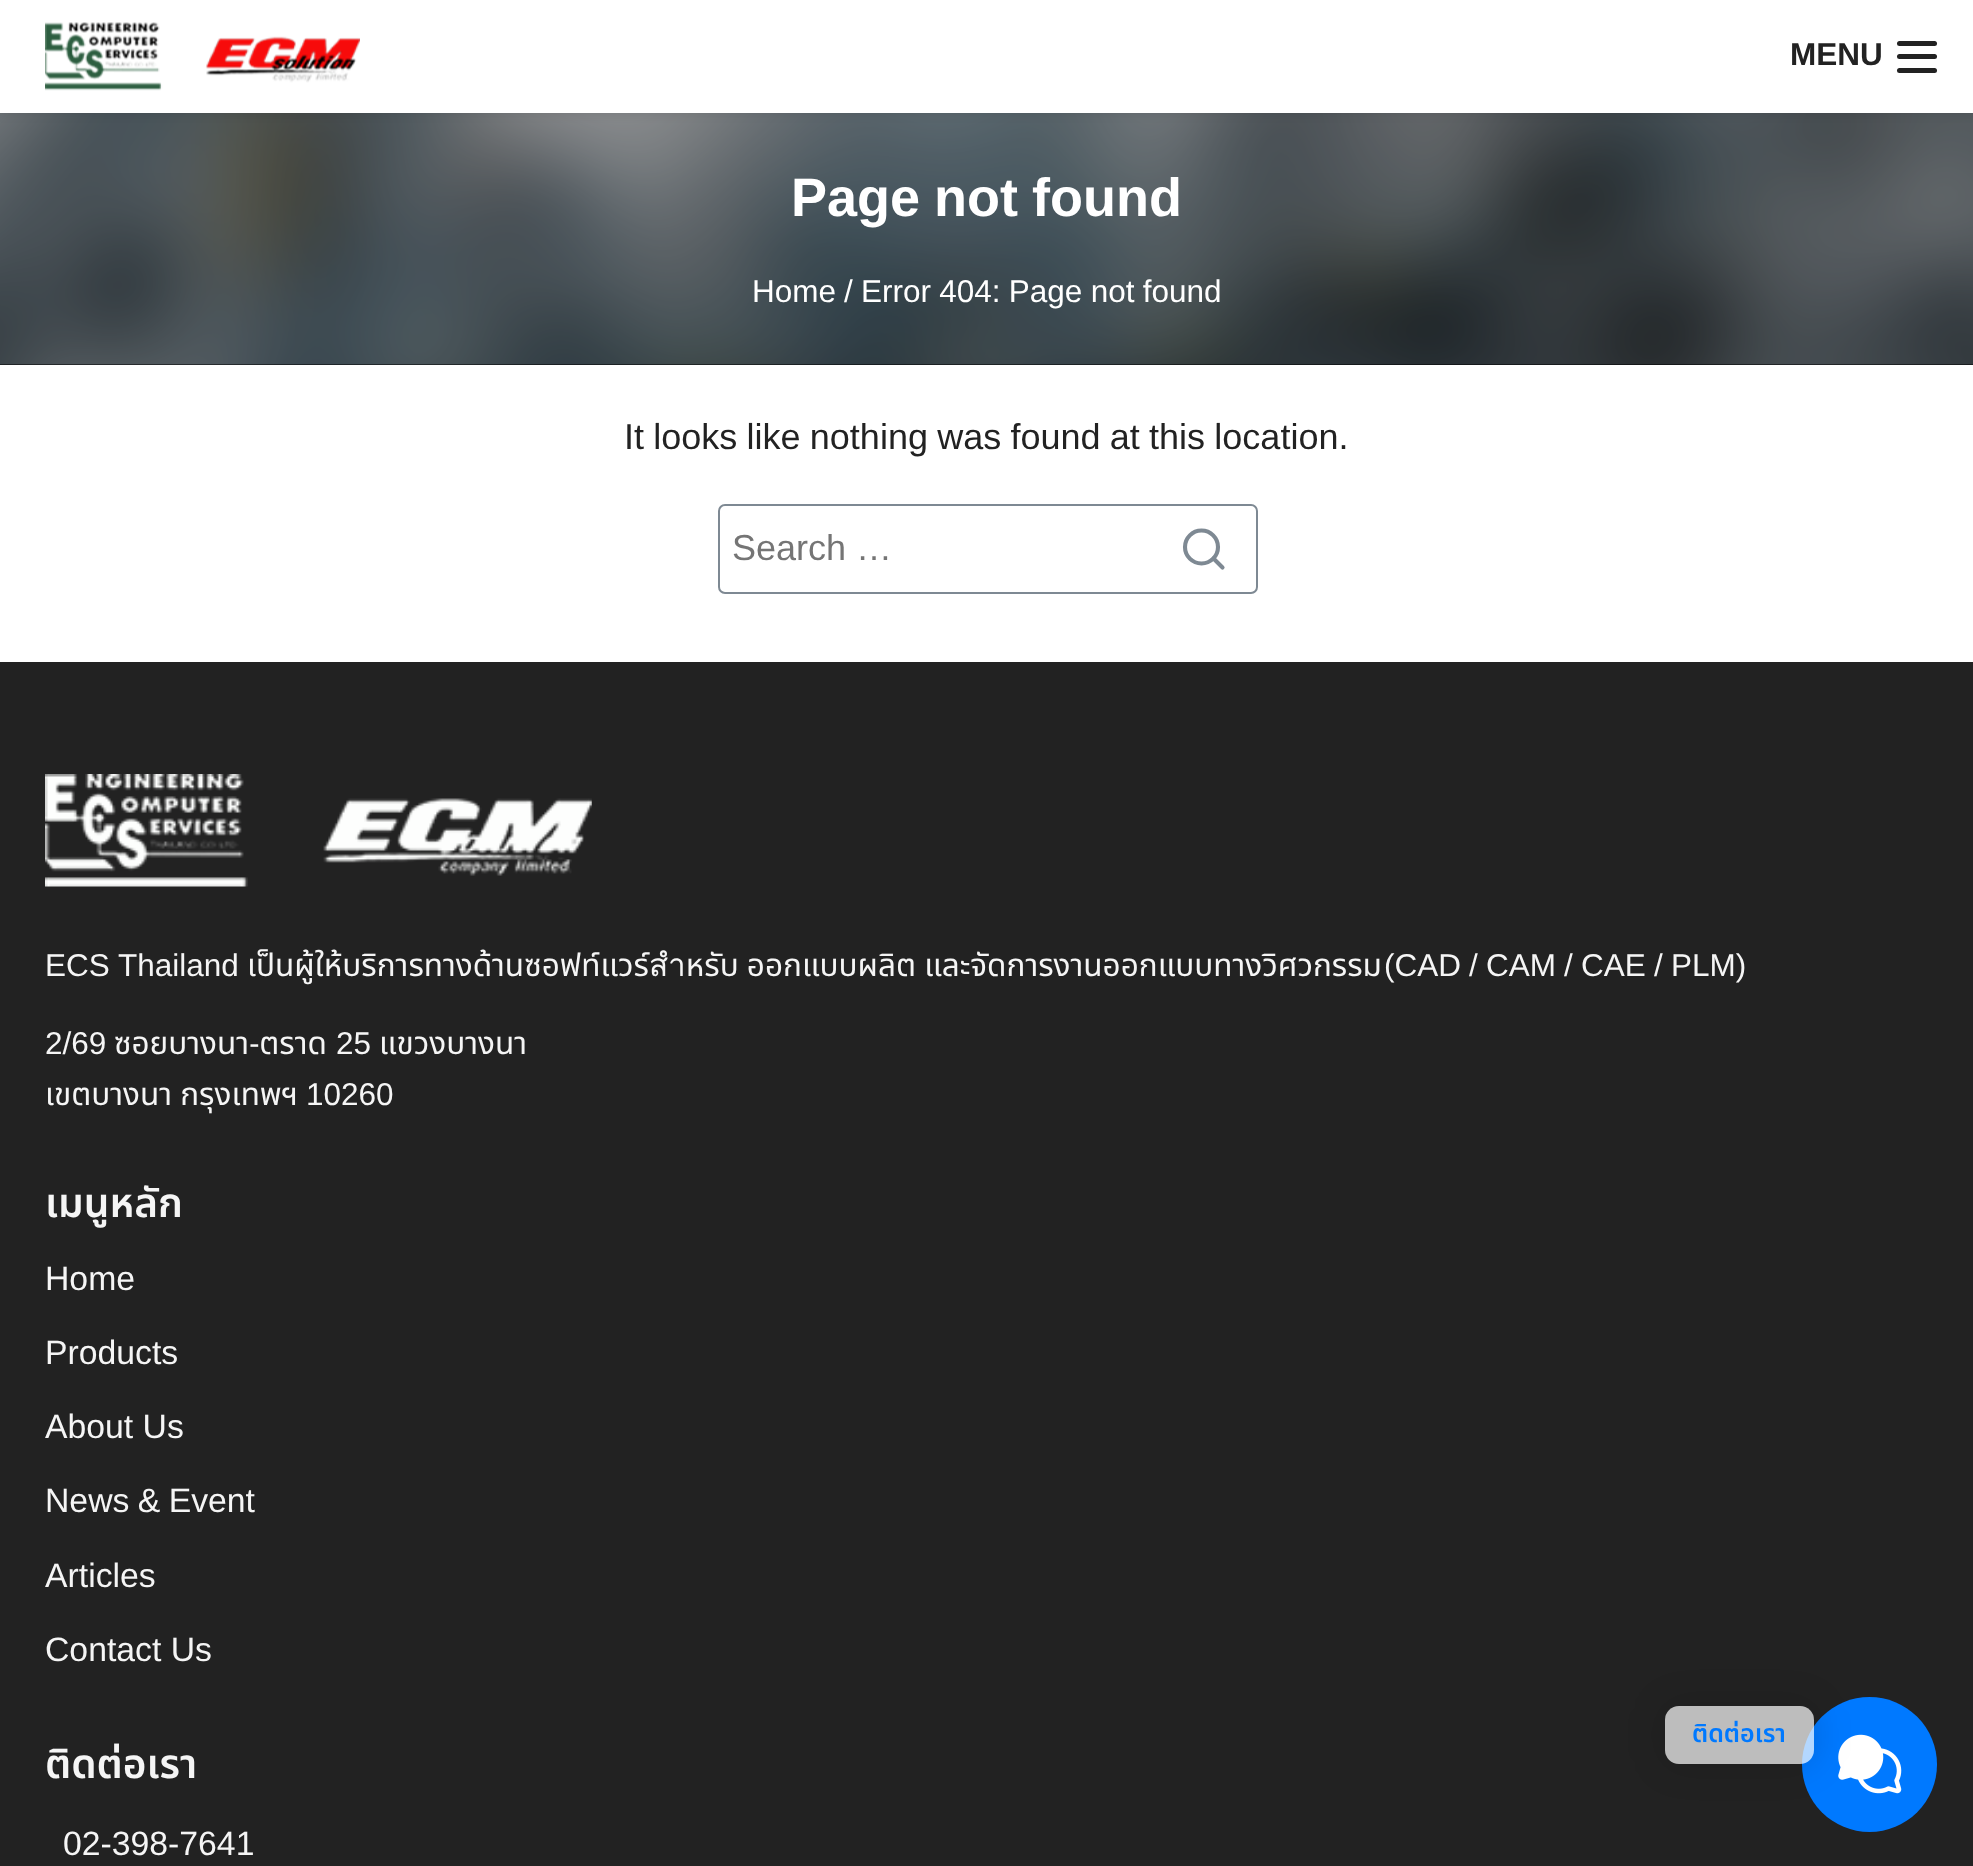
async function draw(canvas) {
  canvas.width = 1973;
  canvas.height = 1866;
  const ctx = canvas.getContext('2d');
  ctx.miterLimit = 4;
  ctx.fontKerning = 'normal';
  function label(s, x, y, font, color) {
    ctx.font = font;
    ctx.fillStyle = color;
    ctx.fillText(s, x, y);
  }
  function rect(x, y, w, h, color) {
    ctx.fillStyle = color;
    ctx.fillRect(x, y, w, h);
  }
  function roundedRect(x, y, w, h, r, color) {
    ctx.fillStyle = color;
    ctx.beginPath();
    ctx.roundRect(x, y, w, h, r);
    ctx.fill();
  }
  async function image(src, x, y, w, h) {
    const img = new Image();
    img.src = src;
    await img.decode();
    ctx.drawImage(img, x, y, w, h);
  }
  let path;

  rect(0, 0, 1973, 1866, '#fff');
  rect(0, 113, 1973, 252, '#000');
  await image('assets/img2.png', 0, 113, 1973, 252);
  ctx.fillStyle = '#0000001a';
  ctx.filter = 'blur(5.5px)';
  ctx.beginPath();
  ctx.rect(0, 0, 1973, 113);
  ctx.fill();
  ctx.filter = 'none';
  rect(0, 0, 1973, 113, '#fff');
  await image('assets/img1.png', 45, 22, 315, 69);
  label('MENU', 1790, 65, 'bold 31.5px Liberation Sans', '#222');
  roundedRect(1897, 54, 40, 5, 2.5, '#222');
  roundedRect(1897, 41, 40, 5, 2.5, '#222');
  roundedRect(1897, 68, 40, 5, 2.5, '#222');
  ctx.wordSpacing = '-1px';
  label('Page not found', 791, 216, 'bold 54px Liberation Sans', '#fff');
  ctx.wordSpacing = '0px';
  label('Home', 752, 302, '31.5px Liberation Sans', '#fff');
  label('/', 844, 302, '31.5px Liberation Sans', '#fff');
  ctx.wordSpacing = '-0.5px';
  label('Error 404: Page not found', 861, 302, '31.5px Liberation Sans', '#fff');
  ctx.wordSpacing = '-0.75px';
  label('It looks like nothing was found at this location.', 624, 449, '36px Liberation Sans', '#222');
  ctx.beginPath();
  ctx.roundRect(719, 505, 538, 88, 6);
  ctx.strokeStyle = '#7e8993';
  ctx.lineWidth = 2;
  ctx.stroke();
  ctx.wordSpacing = '0px';
  label('Search …', 732, 560, '36px Liberation Sans', '#757575');
  ctx.beginPath();
  ctx.arc(1201.5, 547, 16.5, 0, 2 * Math.PI);
  ctx.lineWidth = 4.1;
  ctx.stroke();
  path = new Path2D('M1222.5 567.5L1213.5 558.5');
  ctx.lineCap = 'round';
  ctx.lineJoin = 'round';
  ctx.stroke(path);
  rect(0, 662, 1973, 1204, '#222');
  await image('assets/img3.png', 45, 774, 547, 113);
  label('ECS', 45, 976, '31.5px Liberation Sans', '#f5f5f5');
  label('Thailand', 118, 976, '31.5px Liberation Sans', '#f5f5f5');
  label('เป็นผู้ให้บริการทางด้านซอฟท์แวร์สำหรับ ออกแบบผลิต และจัดการงานออกแบบทางวิศวกรรม', 247, 976, '31.5px Noto Sans Thai', '#f5f5f5');
  label('(CAD', 1384, 976, '31.5px Liberation Sans', '#f5f5f5');
  label('/', 1469, 976, '31.5px Liberation Sans', '#f5f5f5');
  label('CAM', 1486, 976, '31.5px Liberation Sans', '#f5f5f5');
  label('/', 1564, 976, '31.5px Liberation Sans', '#f5f5f5');
  label('CAE', 1581, 976, '31.5px Liberation Sans', '#f5f5f5');
  label('/', 1654, 976, '31.5px Liberation Sans', '#f5f5f5');
  label('PLM)', 1671, 976, '31.5px Liberation Sans', '#f5f5f5');
  label('2/69', 45, 1054, '31.5px Liberation Sans', '#f5f5f5');
  label('ซอยบางนา-ตราด', 114, 1054, '31.5px Noto Sans Thai', '#f5f5f5');
  label('25', 336, 1054, '31.5px Liberation Sans', '#f5f5f5');
  label('แขวงบางนา', 379, 1054, '31.5px Noto Sans Thai', '#f5f5f5');
  label('เขตบางนา กรุงเทพฯ', 45, 1105, '31.5px Noto Sans Thai', '#f5f5f5');
  label('10260', 306, 1105, '31.5px Liberation Sans', '#f5f5f5');
  label('เมนูหลัก', 45, 1217, '600 40.5px Noto Sans Thai', '#f5f5f5');
  label('Home', 45, 1290, '33.75px Liberation Sans', '#f5f5f5');
  label('Products', 45, 1364, '33.75px Liberation Sans', '#f5f5f5');
  label('About Us', 45, 1438, '33.75px Liberation Sans', '#f5f5f5');
  ctx.wordSpacing = '-1px';
  label('News & Event', 45, 1512, '33.75px Liberation Sans', '#f5f5f5');
  ctx.wordSpacing = '0px';
  label('Articles', 45, 1587, '33.75px Liberation Sans', '#f5f5f5');
  label('Contact Us', 45, 1661, '33.75px Liberation Sans', '#f5f5f5');
  label('ติดต่อเรา', 45, 1778, '600 40.5px Noto Sans Thai', '#f5f5f5');
  label('02-398-7641', 63, 1855, '33.75px Liberation Sans', '#f5f5f5');
  ctx.fillStyle = '#0079ff';
  ctx.beginPath();
  ctx.arc(1869.5, 1764.5, 67.5, 0, 2 * Math.PI);
  ctx.fill();
  await image('assets/img4.png', 1838, 1734, 64, 60);
  ctx.save();
  path = new Path2D('M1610 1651H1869V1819H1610ZM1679 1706H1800C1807.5 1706 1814 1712.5 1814 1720V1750C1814 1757.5 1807.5 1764 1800 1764H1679C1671.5 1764 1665 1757.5 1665 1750V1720C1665 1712.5 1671.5 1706 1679 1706Z');
  ctx.clip(path, 'evenodd');
  ctx.fillStyle = '#00000026';
  ctx.filter = 'blur(18px)';
  ctx.beginPath();
  ctx.roundRect(1665, 1706, 149, 58, 14);
  ctx.fill();
  ctx.filter = 'none';
  ctx.restore();
  roundedRect(1665, 1706, 149, 58, 14, '#ffffffb3');
  label('ติดต่อเรา', 1692, 1742, '600 25px "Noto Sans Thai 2"', '#0079ff');
}

draw(document.querySelector('canvas'));
